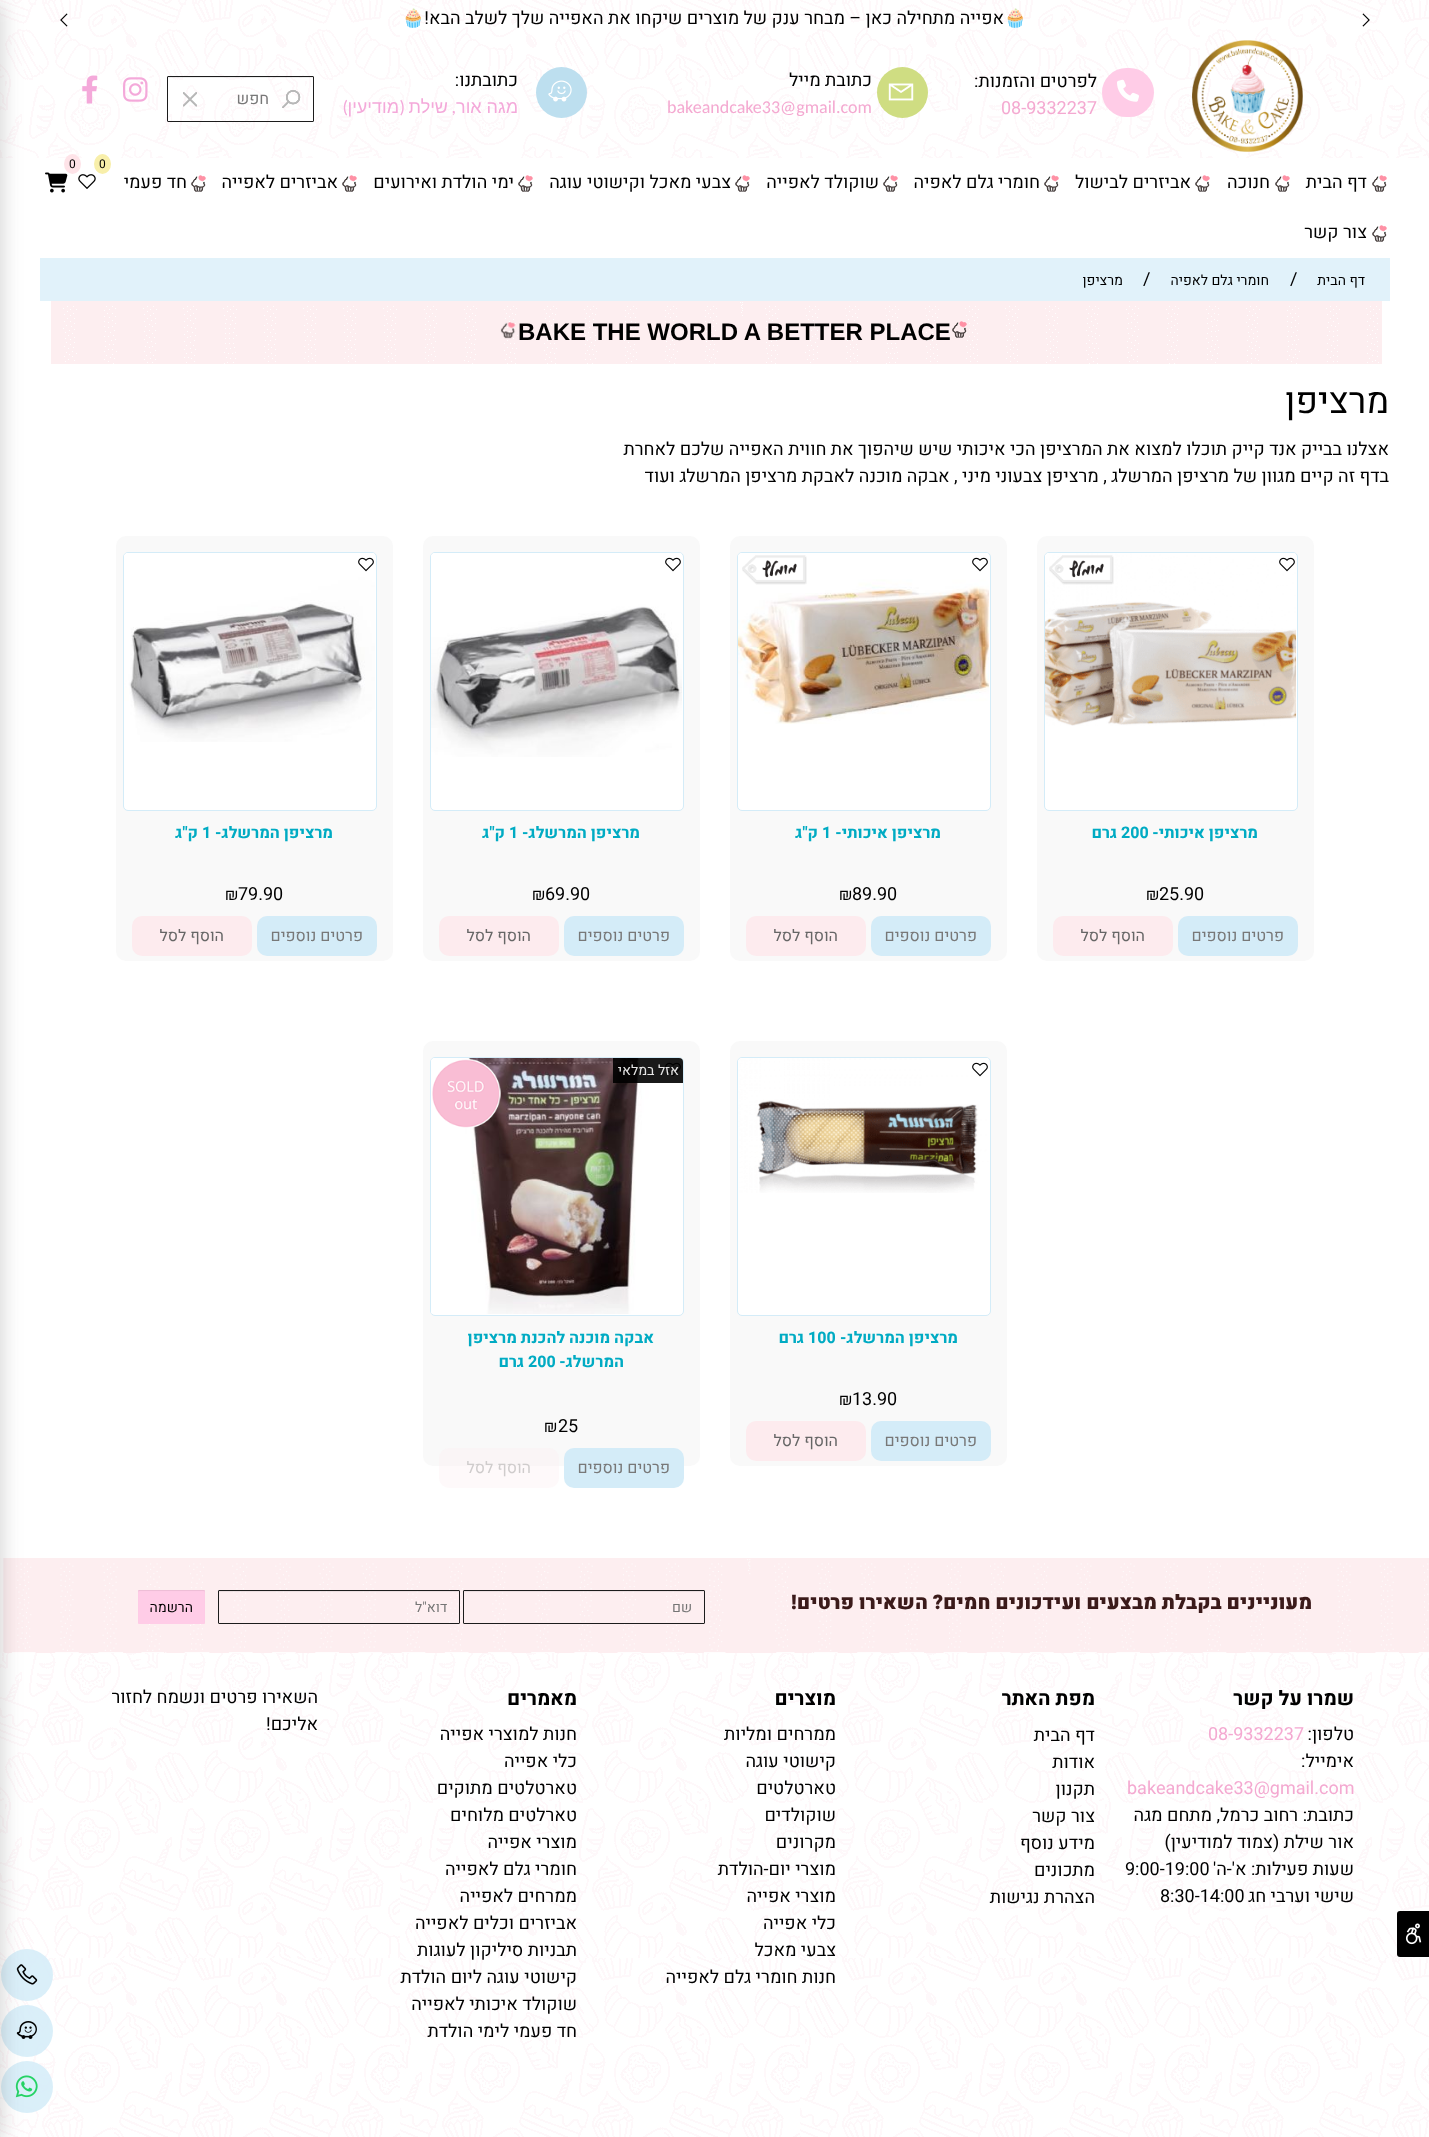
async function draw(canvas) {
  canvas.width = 1429;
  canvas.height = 2137;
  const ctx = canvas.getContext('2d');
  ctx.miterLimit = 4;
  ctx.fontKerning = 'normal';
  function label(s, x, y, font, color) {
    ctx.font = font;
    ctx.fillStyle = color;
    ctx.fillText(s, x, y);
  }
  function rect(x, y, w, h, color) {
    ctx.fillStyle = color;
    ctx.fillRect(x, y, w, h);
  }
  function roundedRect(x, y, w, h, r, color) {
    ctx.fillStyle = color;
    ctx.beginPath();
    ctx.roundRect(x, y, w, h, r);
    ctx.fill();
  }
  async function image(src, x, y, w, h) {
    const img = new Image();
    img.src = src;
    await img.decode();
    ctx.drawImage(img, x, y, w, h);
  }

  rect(0, 0, 1429, 2137, '#fff');
  await image('assets/img1.png', 0, 0, 1429, 158);
  ctx.direction = 'rtl';
  label('🧁', 1027, 24, '18px Noto Color Emoji', '#000');
  label('אפייה מתחילה כאן – מבחר ענק של מוצרים שיקחו את האפייה שלך לשלב הבא!', 1004, 24, '18px Heebo', '#000');
  label('🧁', 425, 24, '18px Noto Color Emoji', '#000');
  await image('assets/img2.png', 1362, 13, 8, 14);
  await image('assets/img3.png', 60, 13, 8, 14);
  await image('assets/img4.png', 1192, 40, 111, 112);
  roundedRect(1102, 68, 52, 49, 24.5, '#ffcce7');
  await image('assets/img5.png', 1117, 79, 22, 23);
  label('לפרטים והזמנות:', 1097, 87, '18px Heebo', '#000');
  ctx.direction = 'ltr';
  label('08-9332237', 1001, 114, '18px Heebo', '#f4a9d1');
  ctx.fillStyle = '#cfdd82';
  ctx.beginPath();
  ctx.arc(902.5, 92.5, 25.5, 0, 2 * Math.PI);
  ctx.fill();
  await image('assets/img6.png', 888, 83, 26, 18);
  ctx.direction = 'rtl';
  label('כתובת מייל', 872, 86, '18px Heebo', '#000');
  ctx.direction = 'ltr';
  label('bakeandcake33@gmail.com', 667, 113, '18px Carlito', '#f4a9d1');
  ctx.fillStyle = '#bddfef';
  ctx.beginPath();
  ctx.arc(561.5, 92.5, 25.5, 0, 2 * Math.PI);
  ctx.fill();
  await image('assets/img7.png', 548, 80, 24, 22);
  ctx.direction = 'rtl';
  label('כתובתנו:', 518, 86, '18px Heebo', '#000');
  label('מגה אור', 518, 113, '18px Liberation Sans', '#f4a9da');
  label('שילת', 448, 113, '18px Liberation Sans', '#f4a9da');
  label('(', 405, 113, '18px Carlito', '#f4a9da');
  label('מודיעין', 399, 113, '18px Liberation Sans', '#f4a9da');
  label(')', 348, 113, '18px Carlito', '#f4a9da');
  label(',', 456, 113, '18px Carlito', '#f4a9da');
  rect(168, 77, 145, 1, '#00000012');
  ctx.beginPath();
  ctx.roundRect(167.5, 76.5, 146, 45, 0.5);
  ctx.strokeStyle = '#1c1c1c';
  ctx.stroke();
  await image('assets/img8.png', 282, 90, 19, 18);
  await image('assets/img9.png', 282, 90, 19, 18);
  await image('assets/img10.png', 282, 90, 19, 18);
  await image('assets/img11.png', 282, 90, 19, 17);
  await image('assets/img12.png', 183, 92, 14, 15);
  await image('assets/img13.png', 183, 92, 14, 15);
  await image('assets/img14.png', 183, 92, 14, 15);
  label('חפש', 269, 104, '16px Heebo', '#787878');
  await image('assets/img15.png', 183, 92, 14, 15);
  await image('assets/img16.png', 123, 77, 25, 25);
  await image('assets/img17.png', 82, 75, 16, 29);
  ctx.fillStyle = '#f8efaa';
  ctx.beginPath();
  ctx.ellipse(102.5, 164, 8.5, 10, 0, 0, 2 * Math.PI);
  ctx.fill();
  ctx.direction = 'ltr';
  label('0', 99, 168, '12px Heebo', '#000');
  await image('assets/img18.png', 78, 174, 18, 15);
  await image('assets/img19.png', 45, 172, 23, 21);
  ctx.fillStyle = '#fee3e8';
  ctx.beginPath();
  ctx.ellipse(72.5, 164, 8.5, 10, 0, 0, 2 * Math.PI);
  ctx.fill();
  label('0', 69, 168, '12px Heebo', '#000');
  await image('assets/img20.png', 1372, 175, 15, 17);
  ctx.direction = 'rtl';
  label('דף הבית', 1367, 188, '18px Heebo', '#000');
  await image('assets/img20.png', 1275, 175, 15, 17);
  label('חנוכה', 1270, 188, '18px Heebo', '#000');
  await image('assets/img20.png', 1195, 175, 15, 17);
  label('אביזרים לבישול', 1191, 188, '18px Heebo', '#000');
  await image('assets/img20.png', 1044, 175, 15, 17);
  label('חומרי גלם לאפיה', 1040, 188, '18px Heebo', '#000');
  await image('assets/img20.png', 883, 175, 15, 17);
  label('שוקולד לאפייה', 879, 188, '18px Heebo', '#000');
  await image('assets/img20.png', 735, 175, 15, 17);
  label('צבעי מאכל וקישוטי עוגה', 731, 188, '18px Heebo', '#000');
  await image('assets/img20.png', 518, 175, 15, 17);
  label('ימי הולדת ואירועים', 514, 188, '18px Heebo', '#000');
  await image('assets/img20.png', 342, 175, 15, 17);
  label('אביזרים לאפייה', 338, 188, '18px Heebo', '#000');
  await image('assets/img20.png', 191, 175, 15, 17);
  label('חד פעמי', 187, 188, '18px Heebo', '#000');
  await image('assets/img20.png', 1372, 225, 15, 17);
  label('צור קשר', 1367, 238, '18px Heebo', '#000');
  rect(40, 258, 1350, 43, '#e1f2fa');
  label('דף הבית', 1365, 285, '14px Heebo', '#000');
  ctx.direction = 'ltr';
  label('/', 1290, 285, '18px Heebo', '#000');
  ctx.direction = 'rtl';
  label('חומרי גלם לאפיה', 1269, 285, '14px Heebo', '#000');
  ctx.direction = 'ltr';
  label('/', 1143, 285, '18px Heebo', '#000');
  ctx.direction = 'rtl';
  label('מרציפן', 1123, 285, '14px Heebo', '#000');
  await image('assets/img37.png', 0, 1653, 1429, 484);
  await image('assets/img38.png', 0, 1558, 1429, 95);
  ctx.fillStyle = '#d4ecf8db';
  ctx.beginPath();
  ctx.arc(27, 1975, 26, 0, 2 * Math.PI);
  ctx.fill();
  await image('assets/img40.png', 16, 1964, 22, 21);
  ctx.beginPath();
  ctx.arc(27, 2031, 26, 0, 2 * Math.PI);
  ctx.fill();
  await image('assets/img41.png', 16, 2021, 21, 18);
  ctx.beginPath();
  ctx.arc(27, 2087, 26, 0, 2 * Math.PI);
  ctx.fill();
  await image('assets/img42.png', 15, 2075, 23, 23);
  ctx.fillStyle = '#57575742';
  ctx.filter = 'blur(10px)';
  ctx.beginPath();
  ctx.rect(-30, 2, 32, 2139);
  ctx.fill();
  ctx.filter = 'none';
  await image('assets/img21.png', 51, 301, 1331, 63);
  await image('assets/img22.png', 952, 321, 15, 17);
  ctx.direction = 'ltr';
  label('BAKE THE WORLD A BETTER PLACE', 518, 340, 'bold 24px Liberation Sans', '#000');
  await image('assets/img23.png', 500, 322, 16, 17);
  ctx.direction = 'rtl';
  label('מרציפן', 1389, 413, '36px Heebo', '#000');
  label('אצלנו בבייק אנד קייק תוכלו למצוא את המרציפן הכי איכותי שיש שיהפוך את חווית האפייה שלכם לאחרת', 1389, 455, '18px Heebo', '#000');
  label('בדף זה קיים מגוון של מרציפן המרשלג , מרציפן צבעוני מיני , אבקה מוכנה לאבקת מרציפן המרשלג ועוד', 1389, 482, '18px Heebo', '#000');
  roundedRect(1037, 536, 277, 425, 10, '#f9f9f9');
  ctx.fillStyle = '#fff';
  ctx.beginPath();
  ctx.roundRect(1044.5, 552.5, 253, 258, 4.5);
  ctx.fill();
  ctx.strokeStyle = '#d4ecf8';
  ctx.stroke();
  await image('assets/img24.png', 1045, 553, 251, 173);
  await image('assets/img25.png', 1279, 557, 16, 15);
  await image('assets/img26.png', 1049, 555, 65, 30);
  label('מרציפן איכותי-', 1258, 838, 'bold 16px Heebo', '#00abc3');
  ctx.direction = 'ltr';
  label('200', 1121, 838, 'bold 16px Heebo', '#00abc3');
  ctx.direction = 'rtl';
  label('גרם', 1117, 838, 'bold 16px Heebo', '#00abc3');
  ctx.direction = 'ltr';
  label('25.90', 1159, 900, '18px Heebo', '#000');
  label('₪', 1146, 900, '16px Heebo', '#000');
  roundedRect(1178, 916, 120, 40, 10, '#d4ecf8');
  ctx.direction = 'rtl';
  label('פרטים נוספים', 1284, 941, '16px Heebo', '#787878');
  roundedRect(1053, 916, 120, 40, 10, '#fdebee');
  label('הוסף לסל', 1145, 941, '16px Heebo', '#666');
  roundedRect(730, 536, 277, 425, 10, '#f9f9f9');
  ctx.fillStyle = '#fff';
  ctx.beginPath();
  ctx.roundRect(737.5, 552.5, 253, 258, 4.5);
  ctx.fill();
  ctx.stroke();
  await image('assets/img27.png', 738, 553, 251, 171);
  await image('assets/img28.png', 972, 557, 16, 15);
  await image('assets/img29.png', 742, 555, 65, 30);
  label('מרציפן איכותי-', 941, 838, 'bold 16px Heebo', '#00abc3');
  ctx.direction = 'ltr';
  label('1', 822, 838, 'bold 16px Heebo', '#00abc3');
  ctx.direction = 'rtl';
  label('ק"ג', 818, 838, 'bold 16px Heebo', '#00abc3');
  ctx.direction = 'ltr';
  label('89.90', 852, 900, '18px Heebo', '#000');
  label('₪', 839, 900, '16px Heebo', '#000');
  roundedRect(871, 916, 120, 40, 10, '#d4ecf8');
  ctx.direction = 'rtl';
  label('פרטים נוספים', 977, 941, '16px Heebo', '#787878');
  roundedRect(746, 916, 120, 40, 10, '#fdebee');
  label('הוסף לסל', 838, 941, '16px Heebo', '#666');
  roundedRect(423, 536, 277, 425, 10, '#f9f9f9');
  ctx.fillStyle = '#fff';
  ctx.beginPath();
  ctx.roundRect(430.5, 552.5, 253, 258, 4.5);
  ctx.fill();
  ctx.stroke();
  await image('assets/img30.png', 431, 553, 251, 204);
  await image('assets/img28.png', 665, 557, 16, 15);
  label('מרציפן המרשלג-', 640, 838, 'bold 16px Heebo', '#00abc3');
  ctx.direction = 'ltr';
  label('1', 509, 838, 'bold 16px Heebo', '#00abc3');
  ctx.direction = 'rtl';
  label('ק"ג', 505, 838, 'bold 16px Heebo', '#00abc3');
  ctx.direction = 'ltr';
  label('69.90', 545, 900, '18px Heebo', '#000');
  label('₪', 532, 900, '16px Heebo', '#000');
  roundedRect(564, 916, 120, 40, 10, '#d4ecf8');
  ctx.direction = 'rtl';
  label('פרטים נוספים', 670, 941, '16px Heebo', '#787878');
  roundedRect(439, 916, 120, 40, 10, '#fdebee');
  label('הוסף לסל', 531, 941, '16px Heebo', '#666');
  roundedRect(116, 536, 277, 425, 10, '#f9f9f9');
  ctx.fillStyle = '#fff';
  ctx.beginPath();
  ctx.roundRect(123.5, 552.5, 253, 258, 4.5);
  ctx.fill();
  ctx.stroke();
  await image('assets/img31.png', 124, 553, 251, 189);
  await image('assets/img28.png', 358, 557, 16, 15);
  label('מרציפן המרשלג-', 333, 838, 'bold 16px Heebo', '#00abc3');
  ctx.direction = 'ltr';
  label('1', 202, 838, 'bold 16px Heebo', '#00abc3');
  ctx.direction = 'rtl';
  label('ק"ג', 198, 838, 'bold 16px Heebo', '#00abc3');
  ctx.direction = 'ltr';
  label('79.90', 238, 900, '18px Heebo', '#000');
  label('₪', 225, 900, '16px Heebo', '#000');
  roundedRect(257, 916, 120, 40, 10, '#d4ecf8');
  ctx.direction = 'rtl';
  label('פרטים נוספים', 363, 941, '16px Heebo', '#787878');
  roundedRect(132, 916, 120, 40, 10, '#fdebee');
  label('הוסף לסל', 224, 941, '16px Heebo', '#666');
  roundedRect(730, 1041, 277, 425, 10, '#f9f9f9');
  ctx.fillStyle = '#fff';
  ctx.beginPath();
  ctx.roundRect(737.5, 1057.5, 253, 258, 4.5);
  ctx.fill();
  ctx.stroke();
  await image('assets/img32.png', 738, 1058, 251, 135);
  await image('assets/img33.png', 972, 1062, 16, 15);
  label('מרציפן המרשלג-', 958, 1343, 'bold 16px Heebo', '#00abc3');
  ctx.direction = 'ltr';
  label('100', 808, 1343, 'bold 16px Heebo', '#00abc3');
  ctx.direction = 'rtl';
  label('גרם', 804, 1343, 'bold 16px Heebo', '#00abc3');
  ctx.direction = 'ltr';
  label('13.90', 852, 1405, '18px Heebo', '#000');
  label('₪', 839, 1405, '16px Heebo', '#000');
  roundedRect(871, 1421, 120, 40, 10, '#d4ecf8');
  ctx.direction = 'rtl';
  label('פרטים נוספים', 977, 1446, '16px Heebo', '#787878');
  roundedRect(746, 1421, 120, 40, 10, '#fdebee');
  label('הוסף לסל', 838, 1446, '16px Heebo', '#666');
  roundedRect(423, 1041, 277, 425, 10, '#f9f9f9');
  ctx.fillStyle = '#fff';
  ctx.beginPath();
  ctx.roundRect(430.5, 1057.5, 253, 258, 4.5);
  ctx.fill();
  ctx.stroke();
  await image('assets/img34.png', 431, 1058, 251, 256);
  await image('assets/img28.png', 665, 1062, 16, 15);
  await image('assets/img35.png', 432, 1058, 69, 70);
  ctx.fillStyle = '#000000e6';
  ctx.beginPath();
  ctx.roundRect(613, 1058, 70, 25, [0, 4, 0, 0]);
  ctx.fill();
  label('אזל במלאי', 679, 1075, '14px Heebo', '#e7e7e7');
  label('אבקה מוכנה להכנת מרציפן', 654, 1343, 'bold 16px Heebo', '#00abc3');
  label('המרשלג-', 624, 1367, 'bold 16px Heebo', '#00abc3');
  ctx.direction = 'ltr';
  label('200', 528, 1367, 'bold 16px Heebo', '#00abc3');
  ctx.direction = 'rtl';
  label('גרם', 524, 1367, 'bold 16px Heebo', '#00abc3');
  ctx.direction = 'ltr';
  label('25', 558, 1432, '18px Heebo', '#000');
  label('₪', 544, 1432, '16px Heebo', '#000');
  roundedRect(564, 1448, 120, 40, 10, '#d4ecf8');
  ctx.direction = 'rtl';
  label('פרטים נוספים', 670, 1473, '16px Heebo', '#787878');
  roundedRect(439, 1448, 120, 40, 10, '#fdebee4d');
  label('הוסף לסל', 531, 1473, '16px Heebo', '#cfcccc');
  ctx.fillStyle = '#000';
  ctx.beginPath();
  ctx.roundRect(1397, 1911, 32, 46, [3, 0, 0, 3]);
  ctx.fill();
  await image('assets/img36.png', 1405, 1923, 17, 22);
  label('מעוניינים בקבלת מבצעים ועידכונים חמים? השאירו פרטים!', 1312, 1609, '900 20px Heebo', '#3b1a1a');
  await image('assets/img39.png', 138, 1590, 567, 34);
  label('שמרו על קשר', 1354, 1705, 'bold 20px Heebo', '#000');
  label('טלפון:', 1354, 1740, '18px Heebo', '#000');
  ctx.direction = 'ltr';
  label('08-9332237', 1208, 1740, '18px Heebo', '#f4a9d1');
  ctx.direction = 'rtl';
  label('אימייל:', 1354, 1767, '18px Heebo', '#000');
  ctx.direction = 'ltr';
  label('bakeandcake33@gmail.com', 1127, 1794, '18px Heebo', '#f4a9d1');
  ctx.direction = 'rtl';
  label('כתובת: רחוב כרמל, מתחם מגה', 1354, 1821, '18px Heebo', '#000');
  label('אור שילת (צמוד למודיעין)', 1354, 1848, '18px Heebo', '#000');
  label('שעות פעילות: א\'-ה\'', 1354, 1875, '18px Heebo', '#000');
  ctx.direction = 'ltr';
  label('9:00-19:00', 1125, 1875, '18px Heebo', '#000');
  ctx.direction = 'rtl';
  label('שישי וערבי חג', 1354, 1902, '18px Heebo', '#000');
  ctx.direction = 'ltr';
  label('8:30-14:00', 1160, 1902, '18px Heebo', '#000');
  ctx.direction = 'rtl';
  label('מפת האתר', 1095, 1705, 'bold 20px Heebo', '#000');
  label('דף הבית', 1095, 1741, '18px Heebo', '#000');
  label('אודות', 1095, 1768, '18px Heebo', '#000');
  label('תקנון', 1095, 1795, '18px Heebo', '#000');
  label('צור קשר', 1095, 1822, '18px Heebo', '#000');
  label('מידע נוסף', 1095, 1849, '18px Heebo', '#000');
  label('מתכונים', 1095, 1876, '18px Heebo', '#000');
  label('הצהרת נגישות', 1095, 1903, '18px Heebo', '#000');
  label('מוצרים', 836, 1705, 'bold 20px Heebo', '#000');
  label('ממרחים ומליות', 836, 1740, '18px Heebo', '#000');
  label('קישוטי עוגה', 836, 1767, '18px Heebo', '#000');
  label('טארטלטים', 836, 1794, '18px Heebo', '#000');
  label('שוקולדים', 836, 1821, '18px Heebo', '#000');
  label('מקרונים', 836, 1848, '18px Heebo', '#000');
  label('מוצרי יום-הולדת', 836, 1875, '18px Heebo', '#000');
  label('מוצרי אפייה', 836, 1902, '18px Heebo', '#000');
  label('כלי אפייה', 836, 1929, '18px Heebo', '#000');
  label('צבעי מאכל', 836, 1956, '18px Heebo', '#000');
  label('חנות חומרי גלם לאפייה', 836, 1983, '18px Heebo', '#000');
  label('מאמרים', 577, 1705, 'bold 20px Heebo', '#000');
  label('חנות למוצרי אפייה', 577, 1740, '18px Heebo', '#000');
  label('כלי אפייה', 577, 1767, '18px Heebo', '#000');
  label('טארטלטים מתוקים', 577, 1794, '18px Heebo', '#000');
  label('טארלטים מלוחים', 577, 1821, '18px Heebo', '#000');
  label('מוצרי אפייה', 577, 1848, '18px Heebo', '#000');
  label('חומרי גלם לאפייה', 577, 1875, '18px Heebo', '#000');
  label('ממרחים לאפייה', 577, 1902, '18px Heebo', '#000');
  label('אביזרים וכלים לאפייה', 577, 1929, '18px Heebo', '#000');
  label('תבניות סיליקון לעוגות', 577, 1956, '18px Heebo', '#000');
  label('קישוטי עוגה ליום הולדת', 577, 1983, '18px Heebo', '#000');
  label('שוקולד איכותי לאפייה', 577, 2010, '18px Heebo', '#000');
  label('חד פעמי לימי הולדת', 577, 2037, '18px Heebo', '#000');
  label('השאירו פרטים ונשמח לחזור', 318, 1703, '18px Heebo', '#000');
  label('אליכם!', 318, 1730, '18px Heebo', '#000');
}

draw(document.querySelector('canvas'));
